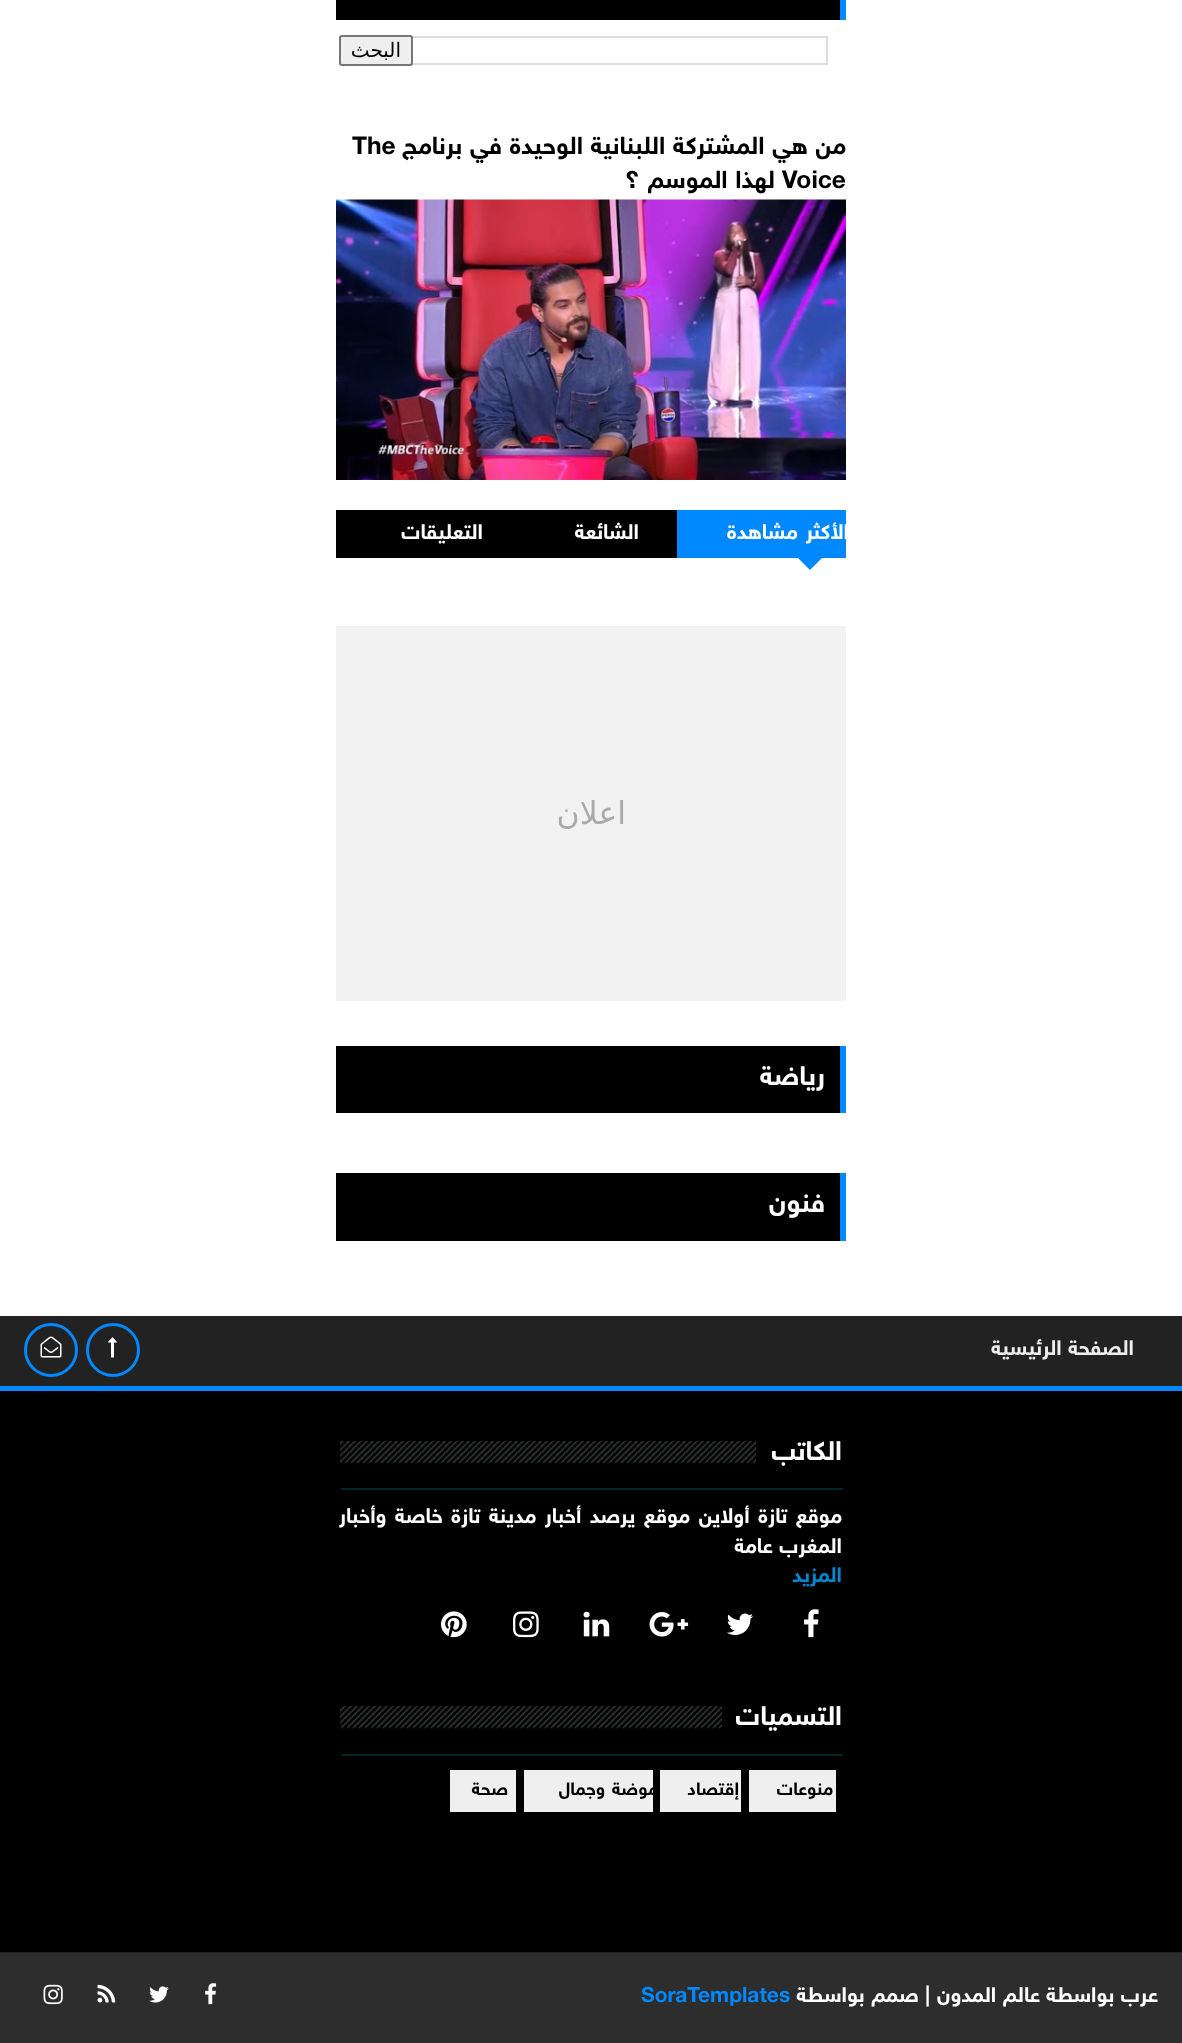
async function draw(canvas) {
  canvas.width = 1182;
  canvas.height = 2043;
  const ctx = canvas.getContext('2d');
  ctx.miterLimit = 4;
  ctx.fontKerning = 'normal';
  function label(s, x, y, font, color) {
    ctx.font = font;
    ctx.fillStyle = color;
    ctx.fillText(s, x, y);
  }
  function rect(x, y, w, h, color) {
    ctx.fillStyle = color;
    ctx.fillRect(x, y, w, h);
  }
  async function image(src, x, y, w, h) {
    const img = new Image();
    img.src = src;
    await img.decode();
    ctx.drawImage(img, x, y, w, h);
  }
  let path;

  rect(0, 0, 1182, 2043, '#fff');
  rect(336, 0, 504, 20, '#000');
  rect(840, 0, 6, 20, '#08f');
  ctx.strokeStyle = '#ddd';
  ctx.lineWidth = 2;
  ctx.strokeRect(397, 37, 430, 27);
  ctx.fillStyle = '#efefef';
  ctx.beginPath();
  ctx.roundRect(340, 36, 72, 29, 2);
  ctx.fill();
  ctx.strokeStyle = '#767676';
  ctx.stroke();
  ctx.direction = 'rtl';
  label('البحث', 401, 57, '20px DejaVu Sans', '#000');
  label('من هي المشتركة اللبنانية الوحيدة في برنامج', 846, 154, 'bold 24.6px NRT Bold', '#000');
  ctx.direction = 'ltr';
  label('The', 352, 154, 'bold 24.6px NRT Bold', '#000');
  label('Voice', 782, 188, 'bold 24.6px NRT Bold', '#000');
  ctx.direction = 'rtl';
  label('لهذا الموسم ؟', 775, 188, 'bold 24.6px NRT Bold', '#000');
  await image('assets/img1.png', 336, 199, 510, 281);
  rect(677, 510, 169, 48, '#08f');
  ctx.letterSpacing = '2.25px';
  ctx.wordSpacing = '-1px';
  label('الأكثر مشاهدة', 849, 539, 'bold 21px NRT Bold', '#fff');
  ctx.fillStyle = '#08f';
  path = new Path2D('M795 555H825L810 570Z');
  ctx.fill(path);
  rect(336, 510, 341, 48, '#000');
  ctx.wordSpacing = '0px';
  label('الشائعة', 639, 539, 'bold 21px NRT Bold', '#fff');
  label('التعليقات', 483, 539, 'bold 21px NRT Bold', '#fff');
  rect(336, 626, 510, 375, '#f2f2f2');
  ctx.letterSpacing = '0px';
  label('اعلان', 626, 824, '31.5px DejaVu Sans', '#aaa');
  rect(336, 1046, 504, 67, '#000');
  rect(840, 1046, 6, 67, '#08f');
  label('رياضة', 825, 1085, 'bold 27px NRT Bold', '#fff');
  rect(336, 1173, 504, 68, '#000');
  rect(840, 1173, 6, 68, '#08f');
  label('فنون', 825, 1212, 'bold 27px NRT Bold', '#fff');
  rect(0, 1391, 1182, 561, '#000');
  rect(0, 1952, 1182, 1, '#222');
  rect(0, 1316, 1182, 70, '#222');
  rect(0, 1386, 1182, 5, '#08f');
  label('الصفحة الرئيسية', 1134, 1355, 'bold 21px NRT Bold', '#eee');
  ctx.beginPath();
  ctx.arc(113, 1350, 25.5, 0, 2 * Math.PI);
  ctx.strokeStyle = '#08f';
  ctx.lineWidth = 3;
  ctx.stroke();
  await image('assets/img2.png', 108, 1337, 9, 21);
  ctx.beginPath();
  ctx.arc(51, 1350, 25.5, 0, 2 * Math.PI);
  ctx.stroke();
  await image('assets/img3.png', 40, 1336, 22, 22);
  rect(341, 1488, 502, 2, '#002427');
  label('الكاتب', 842, 1460, 'bold 27px NRT Bold', '#fff');
  await image('assets/img4.png', 340, 1441, 416, 23);
  ctx.wordSpacing = '2px';
  label('موقع تازة أولاين موقع يرصد أخبار مدينة تازة خاصة وأخبار', 842, 1523, 'bold 21px NRT Bold', '#fff');
  ctx.wordSpacing = '0px';
  label('المغرب عامة', 842, 1553, 'bold 21px NRT Bold', '#fff');
  label('المزيد', 842, 1582, 'bold 21px NRT Bold', '#0288d1');
  await image('assets/img5.png', 804, 1609, 15, 29);
  await image('assets/img6.png', 727, 1613, 26, 22);
  await image('assets/img7.png', 649, 1612, 40, 25);
  await image('assets/img8.png', 583, 1611, 27, 26);
  await image('assets/img9.png', 513, 1611, 26, 27);
  await image('assets/img10.png', 441, 1611, 26, 27);
  rect(341, 1754, 502, 2, '#002427');
  label('التسميات', 842, 1725, 'bold 27px NRT Bold', '#fff');
  await image('assets/img11.png', 340, 1706, 382, 23);
  rect(749, 1770, 87, 42, '#efefef');
  ctx.letterSpacing = '2.25px';
  label('منوعات', 833, 1795, 'bold 18px NRT Bold', '#000');
  rect(660, 1770, 81, 42, '#efefef');
  label('إقتصاد', 739, 1795, 'bold 18px NRT Bold', '#000');
  rect(524, 1770, 129, 42, '#efefef');
  ctx.wordSpacing = '-1px';
  label('موضة وجمال', 658, 1795, 'bold 18px NRT Bold', '#000');
  rect(450, 1770, 66, 42, '#efefef');
  ctx.wordSpacing = '0px';
  label('صحة', 508, 1795, 'bold 18px NRT Bold', '#000');
  rect(0, 1953, 1182, 90, '#2d2d2d');
  ctx.letterSpacing = '0px';
  label('عرب بواسطة', 1158, 2002, 'bold 21px NRT Bold', '#fff');
  label('عالم المدون', 1040, 2002, 'bold 21px NRT Bold', '#fff');
  label('| صمم بواسطة', 930, 2002, 'bold 21px NRT Bold', '#fff');
  ctx.direction = 'ltr';
  label('SoraTemplates', 641, 2002, 'bold 21px NRT Bold', '#08f');
  await image('assets/img12.png', 205, 1983, 12, 22);
  await image('assets/img13.png', 149, 1986, 20, 17);
  await image('assets/img14.png', 97, 1984, 19, 19);
  await image('assets/img15.png', 43, 1984, 20, 21);
}

draw(document.querySelector('canvas'));
